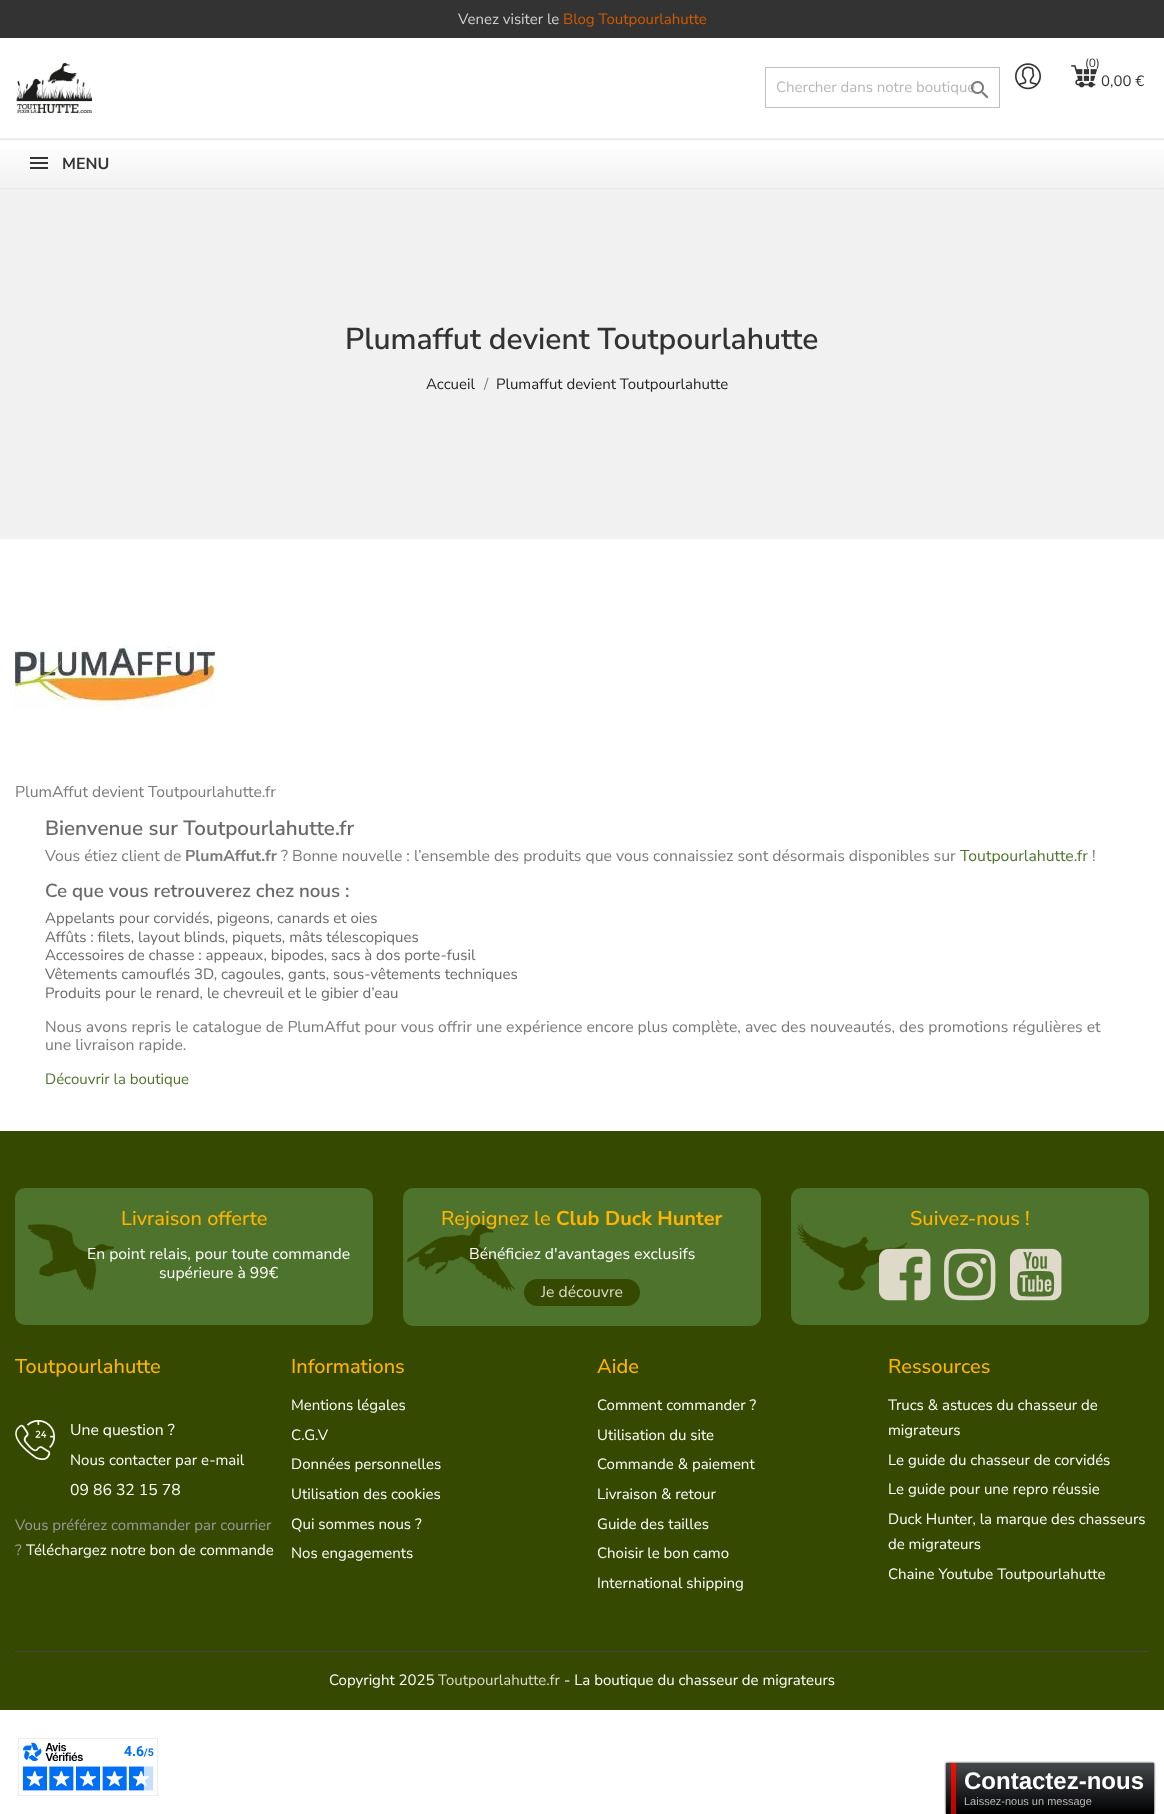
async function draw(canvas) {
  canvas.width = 1164;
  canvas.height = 1814;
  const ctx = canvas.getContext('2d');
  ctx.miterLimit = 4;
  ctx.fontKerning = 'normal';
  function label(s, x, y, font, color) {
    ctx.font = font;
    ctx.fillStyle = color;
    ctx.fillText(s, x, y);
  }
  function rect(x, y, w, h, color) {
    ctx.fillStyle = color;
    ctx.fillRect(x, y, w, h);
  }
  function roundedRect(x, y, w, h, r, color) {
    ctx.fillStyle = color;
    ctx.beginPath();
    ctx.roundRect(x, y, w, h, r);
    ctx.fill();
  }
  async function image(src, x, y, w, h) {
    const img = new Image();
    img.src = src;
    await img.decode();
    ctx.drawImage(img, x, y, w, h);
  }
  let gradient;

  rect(0, 0, 1164, 1814, '#fff');
  rect(0, 0, 1164, 38, '#333');
  label('Venez visiter le', 458, 24, '15px Nunito Sans', '#d0d0d0');
  label('Blog Toutpourlahutte', 563, 24, '15px Nunito Sans', '#d15a00');
  await image('assets/img1.png', 15, 63, 77, 50);
  ctx.strokeStyle = '#bfbfbf';
  ctx.strokeRect(765.5, 67.5, 234, 40);
  label('Chercher dans notre boutique', 776, 92, '15px Nunito Sans', '#b7b7b7');
  await image('assets/img2.png', 971, 81, 18, 18);
  await image('assets/img3.png', 1015, 63, 26, 27);
  await image('assets/img4.png', 1071, 65, 26, 23);
  label('(0)', 1085, 67, '12px Nunito Sans', '#333');
  label('0,00 €', 1101, 86, '15px Nunito Sans', '#333');
  rect(0, 138, 1164, 1, '#eee');
  gradient = ctx.createLinearGradient(582, 140, 582, 188);
  gradient.addColorStop(0, '#fff');
  gradient.addColorStop(1, '#f2f2f2');
  ctx.fillStyle = gradient;
  ctx.fillRect(0, 149, 1164, 39);
  rect(0, 139, 1164, 1, '#e7e7e7');
  rect(0, 188, 1164, 1, '#e7e7e7');
  rect(30, 157, 18, 2, '#333');
  rect(30, 162, 18, 2, '#333');
  rect(30, 167, 18, 2, '#333');
  label('MENU', 62, 169, 'bold 16px Nunito Sans', '#333');
  rect(0, 189, 1164, 350, '#f1f1f1');
  label('Plumaffut devient Toutpourlahutte', 345, 349, '600 30px Nunito Sans', '#333');
  label('Accueil', 426, 389, '15px Nunito Sans', '#232323');
  label('/', 484, 389, '15px Nunito Sans', '#7a7a7a');
  label('Plumaffut devient Toutpourlahutte', 496, 389, '15px Nunito Sans', '#232323');
  await image('assets/img5.png', 15, 645, 200, 65);
  label('PlumAffut devient Toutpourlahutte.fr', 15, 797, '15.75px Nunito Sans', '#7a7a7a');
  label('Bienvenue sur Toutpourlahutte.fr', 45, 835, '600 20.6px Nunito Sans', '#696969');
  label('Vous étiez client de', 45, 861, '15.75px Nunito Sans', '#7a7a7a');
  label('PlumAffut.fr', 185, 861, 'bold 15.75px Nunito Sans', '#7a7a7a');
  label('? Bonne nouvelle : l’ensemble des produits que vous connaissiez sont désormais disponibles sur', 281, 861, '15.75px Nunito Sans', '#7a7a7a');
  label('Toutpourlahutte.fr', 960, 861, '15.75px Nunito Sans', '#4e732c');
  label('!', 1092, 861, '15.75px Nunito Sans', '#7a7a7a');
  label('Ce que vous retrouverez chez nous :', 45, 897, '600 18.75px Nunito Sans', '#696969');
  label('Appelants pour corvidés, pigeons, canards et oies', 45, 923, '15px Nunito Sans', '#696969');
  label('Affûts : filets, layout blinds, piquets, mâts télescopiques', 45, 942, '15px Nunito Sans', '#696969');
  label('Accessoires de chasse : appeaux, bipodes, sacs à dos porte-fusil', 45, 960, '15px Nunito Sans', '#696969');
  label('Vêtements camouflés 3D, cagoules, gants, sous-vêtements techniques', 45, 979, '15px Nunito Sans', '#696969');
  label('Produits pour le renard, le chevreuil et le gibier d’eau', 45, 998, '15px Nunito Sans', '#696969');
  label('Nous avons repris le catalogue de PlumAffut pour vous offrir une expérience encore plus complète, avec des nouveautés, des promotions régulières et', 45, 1032, '15.75px Nunito Sans', '#7a7a7a');
  label('une livraison rapide.', 45, 1050, '15.75px Nunito Sans', '#7a7a7a');
  label('Découvrir la boutique', 45, 1084, '15px Nunito Sans', '#4e732c');
  rect(0, 1131, 1164, 215, '#354a00');
  roundedRect(15, 1188, 358, 137, 10, '#4e732c');
  await image('assets/img6.png', 27, 1224, 87, 67);
  label('Livraison offerte', 121, 1225, '500 20px Nunito Sans', '#ffb400');
  label('En point relais, pour toute commande', 87, 1259, '15.75px Nunito Sans', '#fff');
  label('supérieure à 99€', 159, 1278, '15.75px Nunito Sans', '#fff');
  roundedRect(403, 1188, 358, 138, 10, '#4e732c');
  await image('assets/img7.png', 407, 1224, 108, 67);
  label('Rejoignez le', 441, 1225, '500 20px Nunito Sans', '#ffb400');
  label('Club Duck Hunter', 556, 1225, 'bold 20px Nunito Sans', '#ffb400');
  label('Bénéficiez d\'avantages exclusifs', 469, 1259, '15.75px Nunito Sans', '#fff');
  ctx.fillStyle = '#354a00';
  ctx.beginPath();
  ctx.roundRect(525, 1280, 114, 25, 12.5);
  ctx.fill();
  ctx.strokeStyle = '#354a00';
  ctx.lineWidth = 2;
  ctx.stroke();
  label('Je découvre', 541, 1297, '15.75px Nunito Sans', '#dfd9ca');
  roundedRect(791, 1188, 358, 137, 10, '#4e732c');
  await image('assets/img8.png', 797, 1223, 110, 68);
  label('Suivez-nous !', 910, 1225, '500 20px Nunito Sans', '#ffb400');
  await image('assets/img9.png', 879, 1248, 52, 53);
  await image('assets/img10.png', 944, 1248, 52, 53);
  await image('assets/img11.png', 1010, 1248, 52, 53);
  rect(0, 1346, 1164, 364, '#354a00');
  label('Toutpourlahutte', 15, 1373, '500 20px Nunito Sans', '#ffb400');
  await image('assets/img12.png', 15, 1420, 40, 40);
  label('Une question ?', 70, 1435, '15.75px Nunito Sans', '#fff');
  label('Nous contacter par e-mail', 70, 1465, '15px Nunito Sans', '#fff');
  label('09 86 32 15 78', 70, 1495, '15.75px Nunito Sans', '#fff');
  label('Vous préférez commander par courrier', 15, 1530, '15px Nunito Sans', '#9a9a9a');
  label('?', 15, 1555, '15px Nunito Sans', '#9a9a9a');
  label('Téléchargez notre bon de commande', 26, 1555, '15px Nunito Sans', '#fff');
  label('Informations', 291, 1373, '500 20px Nunito Sans', '#ffb400');
  label('Mentions légales', 291, 1410, '15px Nunito Sans', '#fff');
  label('C.G.V', 291, 1440, '15px Nunito Sans', '#fff');
  label('Données personnelles', 291, 1469, '15px Nunito Sans', '#fff');
  label('Utilisation des cookies', 291, 1499, '15px Nunito Sans', '#fff');
  label('Qui sommes nous ?', 291, 1529, '15px Nunito Sans', '#fff');
  label('Nos engagements', 291, 1558, '15px Nunito Sans', '#fff');
  label('Aide', 597, 1373, '500 20px Nunito Sans', '#ffb400');
  label('Comment commander ?', 597, 1410, '15px Nunito Sans', '#fff');
  label('Utilisation du site', 597, 1440, '15px Nunito Sans', '#fff');
  label('Commande & paiement', 597, 1469, '15px Nunito Sans', '#fff');
  label('Livraison & retour', 597, 1499, '15px Nunito Sans', '#fff');
  label('Guide des tailles', 597, 1529, '15px Nunito Sans', '#fff');
  label('Choisir le bon camo', 597, 1558, '15px Nunito Sans', '#fff');
  label('International shipping', 597, 1588, '15px Nunito Sans', '#fff');
  label('Ressources', 888, 1373, '500 20px Nunito Sans', '#ffb400');
  label('Trucs & astuces du chasseur de', 888, 1410, '15px Nunito Sans', '#fff');
  label('migrateurs', 888, 1435, '15px Nunito Sans', '#fff');
  label('Le guide du chasseur de corvidés', 888, 1465, '15px Nunito Sans', '#fff');
  label('Le guide pour une repro réussie', 888, 1494, '15px Nunito Sans', '#fff');
  label('Duck Hunter, la marque des chasseurs', 888, 1524, '15px Nunito Sans', '#fff');
  label('de migrateurs', 888, 1549, '15px Nunito Sans', '#fff');
  label('Chaine Youtube Toutpourlahutte', 888, 1579, '15px Nunito Sans', '#fff');
  rect(15, 1651, 1134, 1, '#444');
  label('Copyright 2025', 329, 1685, '15px Nunito Sans', '#fff');
  label('Toutpourlahutte.fr', 438, 1685, '15px Nunito Sans', '#dfd9ca');
  label('- La boutique du chasseur de migrateurs', 564, 1685, '15px Nunito Sans', '#fff');
  ctx.fillStyle = '#000';
  ctx.filter = 'blur(1px)';
  ctx.beginPath();
  ctx.rect(946, 1763, 208, 51);
  ctx.fill();
  ctx.filter = 'none';
  gradient = ctx.createLinearGradient(1050, 1763, 1050, 1814);
  gradient.addColorStop(0, '#45484d');
  gradient.addColorStop(1, '#000');
  ctx.fillStyle = gradient;
  ctx.fillRect(946, 1763, 208, 51);
  gradient = ctx.createLinearGradient(954, 1763, 954, 1814);
  gradient.addColorStop(0, '#f41000');
  gradient.addColorStop(1, '#b40300');
  ctx.fillStyle = gradient;
  ctx.fillRect(951, 1763, 5, 51);
  label('Contactez-nous', 964, 1789, 'bold 24px Liberation Sans', '#fff');
  label('Laissez-nous un message', 964, 1805, '11px Liberation Sans', '#b7b7b7');
  await image('assets/img13.png', 18, 1738, 140, 58);
}

draw(document.querySelector('canvas'));
